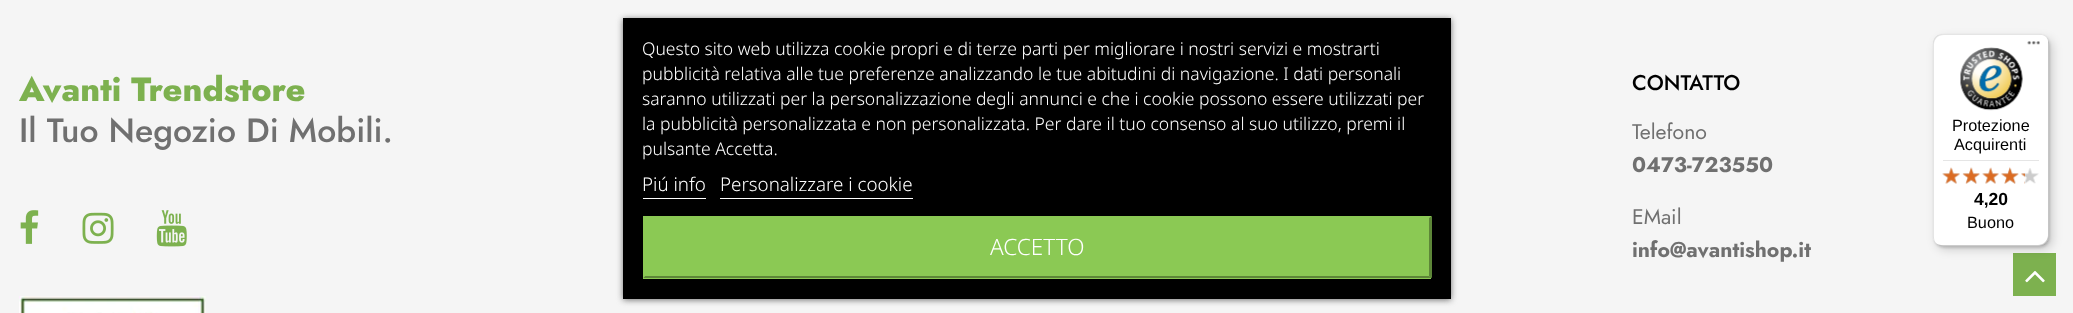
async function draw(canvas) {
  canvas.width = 2073;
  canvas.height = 313;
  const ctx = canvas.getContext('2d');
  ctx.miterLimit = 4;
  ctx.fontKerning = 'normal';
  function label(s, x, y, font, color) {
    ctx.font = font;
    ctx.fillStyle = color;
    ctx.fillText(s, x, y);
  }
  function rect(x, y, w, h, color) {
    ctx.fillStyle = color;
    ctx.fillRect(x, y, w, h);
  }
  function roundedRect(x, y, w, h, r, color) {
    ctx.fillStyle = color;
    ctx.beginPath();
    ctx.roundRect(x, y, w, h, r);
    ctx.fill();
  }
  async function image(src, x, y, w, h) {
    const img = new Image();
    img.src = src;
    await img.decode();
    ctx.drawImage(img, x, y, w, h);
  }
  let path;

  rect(0, 0, 2073, 313, '#f5f5f5');
  label('Avanti Trendstore', 19, 101, '800 33.75px Jost', '#7db14f');
  label('Il Tuo Negozio Di Mobili.', 19, 142, '500 33.75px Jost', '#707070');
  await image('assets/img1.png', 20, 210, 19, 34);
  await image('assets/img2.png', 82, 212, 32, 32);
  await image('assets/img3.png', 156, 210, 31, 37);
  await image('assets/img4.png', 19, 296, 187, 17);
  ctx.filter = 'blur(3px)';
  ctx.beginPath();
  ctx.rect(623, 19, 828, 281);
  ctx.fill();
  ctx.filter = 'none';
  rect(623, 18, 828, 281, '#000');
  label('Questo sito web utilizza cookie propri e di terze parti per migliorare i nostri servizi e mostrarti', 642, 55, '300 17.5px Noto Sans', '#fff');
  label('pubblicità relativa alle tue preferenze analizzando le tue abitudini di navigazione. I dati personali', 642, 80, '300 17.5px Noto Sans', '#fff');
  label('saranno utilizzati per la personalizzazione degli annunci e che i cookie possono essere utilizzati per', 642, 105, '300 17.5px Noto Sans', '#fff');
  label('la pubblicità personalizzata e non personalizzata. Per dare il tuo consenso al suo utilizzo, premi il', 642, 130, '300 17.5px Noto Sans', '#fff');
  label('pulsante Accetta.', 642, 155, '300 17.5px Noto Sans', '#fff');
  label('Piú info', 642, 191, '300 18.75px Noto Sans', '#fff');
  rect(643, 198, 63, 1, '#fff');
  label('Personalizzare i cookie', 720, 191, '300 18.75px Noto Sans', '#fff');
  rect(720, 198, 193, 1, '#fff');
  rect(643, 216, 788, 63, '#8bc954');
  path = new Path2D('M643 216H1432L1429 218H645Z');
  ctx.fill(path);
  ctx.fillStyle = '#5d8638';
  path = new Path2D('M1432 216V278L1429 276V218Z');
  ctx.fill(path);
  path = new Path2D('M1432 278H643L645 276H1429Z');
  ctx.fill(path);
  ctx.fillStyle = '#8bc954';
  path = new Path2D('M643 278V216L645 218V276Z');
  ctx.fill(path);
  label('ACCETTO', 990, 255, '300 22.5px Noto Sans', '#fff');
  label('CONTATTO', 1632, 90, '500 21.25px Jost', '#000');
  label('Telefono', 1632, 139, '21.25px Jost', '#707070');
  label('0473-723550', 1632, 172, 'bold 21.25px Jost', '#707070');
  label('EMail', 1632, 224, '21.25px Jost', '#707070');
  label('info@avantishop.it', 1632, 257, 'bold 21.25px Jost', '#707070');
  rect(2013, 253, 43, 43, '#7db14f');
  ctx.fillStyle = '#00000026';
  ctx.filter = 'blur(5px)';
  ctx.beginPath();
  ctx.roundRect(1936, 38, 117, 212, 10);
  ctx.fill();
  ctx.filter = 'none';
  ctx.filter = 'blur(1px)';
  ctx.beginPath();
  ctx.roundRect(1934, 35, 116, 213, 10);
  ctx.fill();
  ctx.filter = 'none';
  roundedRect(1933, 34, 116, 212, 10, '#fff');
  ctx.fillStyle = '#0000001a';
  path = new Path2D('M1944 35H2040C2042 35 2044 35 2045 36C2044 35 2041 34 2039 34H1943C1937 34 1933 38 1933 44V236C1933 238 1934 240 1935 242L1934 238V45C1934 39 1938 35 1944 35Z');
  ctx.fill(path);
  ctx.fillStyle = '#00000033';
  path = new Path2D('M1937 244C1939 245 1941 246 1943 246H2039C2045 246 2049 242 2049 236V44C2049 42 2048 40 2047 38C2048 39 2048 41 2048 42V235C2048 241 2043 245 2038 245H1941Z');
  ctx.fill(path);
  ctx.fillStyle = '#32323233';
  path = new Path2D('M2038 246H2039C2045 246 2049 242 2049 236V44C2049 42 2048 39 2047 38C2048 39 2048 41 2048 43V236C2048 241 2044 246 2038 246Z');
  ctx.fill(path);
  ctx.fillStyle = '#ffffff4d';
  path = new Path2D('M2038 246H2039C2045 246 2049 242 2049 236V44C2049 41 2048 38 2045 36C2047 38 2048 41 2048 43V236C2048 241 2044 246 2038 246Z');
  ctx.fill(path);
  await image('assets/img5.png', 2027, 41, 13, 4);
  await image('assets/img6.png', 1960, 47, 63, 64);
  label('Protezione', 1952, 131, '16.25px Liberation Sans', '#000');
  label('Acquirenti', 1954, 150, '16.25px Liberation Sans', '#000');
  rect(1943, 160, 96, 1, '#e5e5e5');
  await image('assets/img7.png', 1942, 168, 18, 16);
  await image('assets/img8.png', 1963, 167, 17, 17);
  await image('assets/img9.png', 1982, 168, 17, 16);
  await image('assets/img10.png', 2001, 167, 18, 17);
  await image('assets/img11.png', 2021, 168, 18, 16);
  await image('assets/img12.png', 1942, 167, 18, 17);
  await image('assets/img13.png', 1962, 167, 18, 17);
  await image('assets/img14.png', 1982, 167, 17, 17);
  await image('assets/img15.png', 2001, 167, 18, 17);
  await image('assets/img16.png', 2021, 173, 4, 11);
  label('4,20', 1974, 205, 'bold 17.5px Liberation Sans', '#000');
  label('Buono', 1967, 228, '16.25px Liberation Sans', '#000');
  await image('assets/img17.png', 2025, 271, 20, 12);
}

draw(document.querySelector('canvas'));
